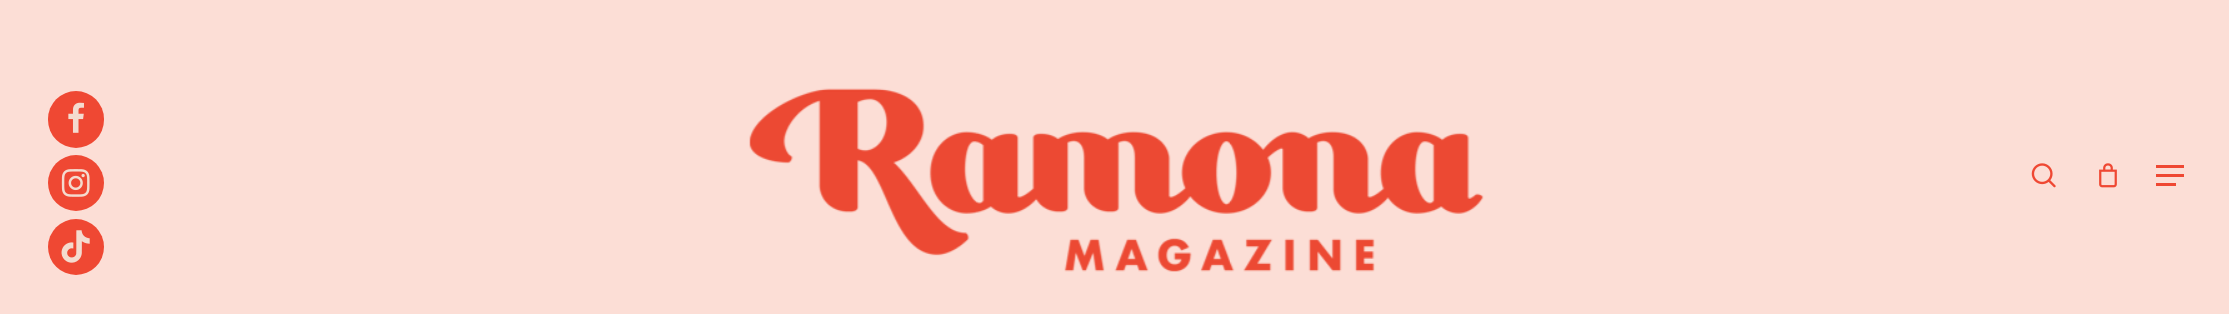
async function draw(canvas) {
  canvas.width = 2229;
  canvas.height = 314;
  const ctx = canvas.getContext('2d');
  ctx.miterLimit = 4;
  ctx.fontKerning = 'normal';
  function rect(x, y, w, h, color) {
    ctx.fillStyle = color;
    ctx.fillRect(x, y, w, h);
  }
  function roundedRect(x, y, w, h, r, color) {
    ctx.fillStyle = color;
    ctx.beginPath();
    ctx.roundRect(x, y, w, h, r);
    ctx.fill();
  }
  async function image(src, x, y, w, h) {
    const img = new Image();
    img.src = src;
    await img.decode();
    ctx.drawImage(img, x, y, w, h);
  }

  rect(0, 0, 2229, 314, '#fcded6');
  await image('assets/img1.png', 749, 88, 735, 184);
  roundedRect(48, 91, 56, 57, 28, '#ef4833');
  await image('assets/img2.png', 68, 102, 16, 31);
  ctx.beginPath();
  ctx.arc(76, 183, 28, 0, 2 * Math.PI);
  ctx.fill();
  await image('assets/img3.png', 61, 169, 29, 28);
  ctx.beginPath();
  ctx.arc(76, 247, 28, 0, 2 * Math.PI);
  ctx.fill();
  await image('assets/img4.png', 61, 230, 29, 33);
  await image('assets/img5.png', 2031, 163, 25, 25);
  await image('assets/img6.png', 2099, 163, 18, 25);
  rect(2156, 165, 28, 3, '#ef4833');
  rect(2156, 183, 20, 3, '#ef4833');
  rect(2156, 174, 28, 3, '#ef4833');
}

draw(document.querySelector('canvas'));
